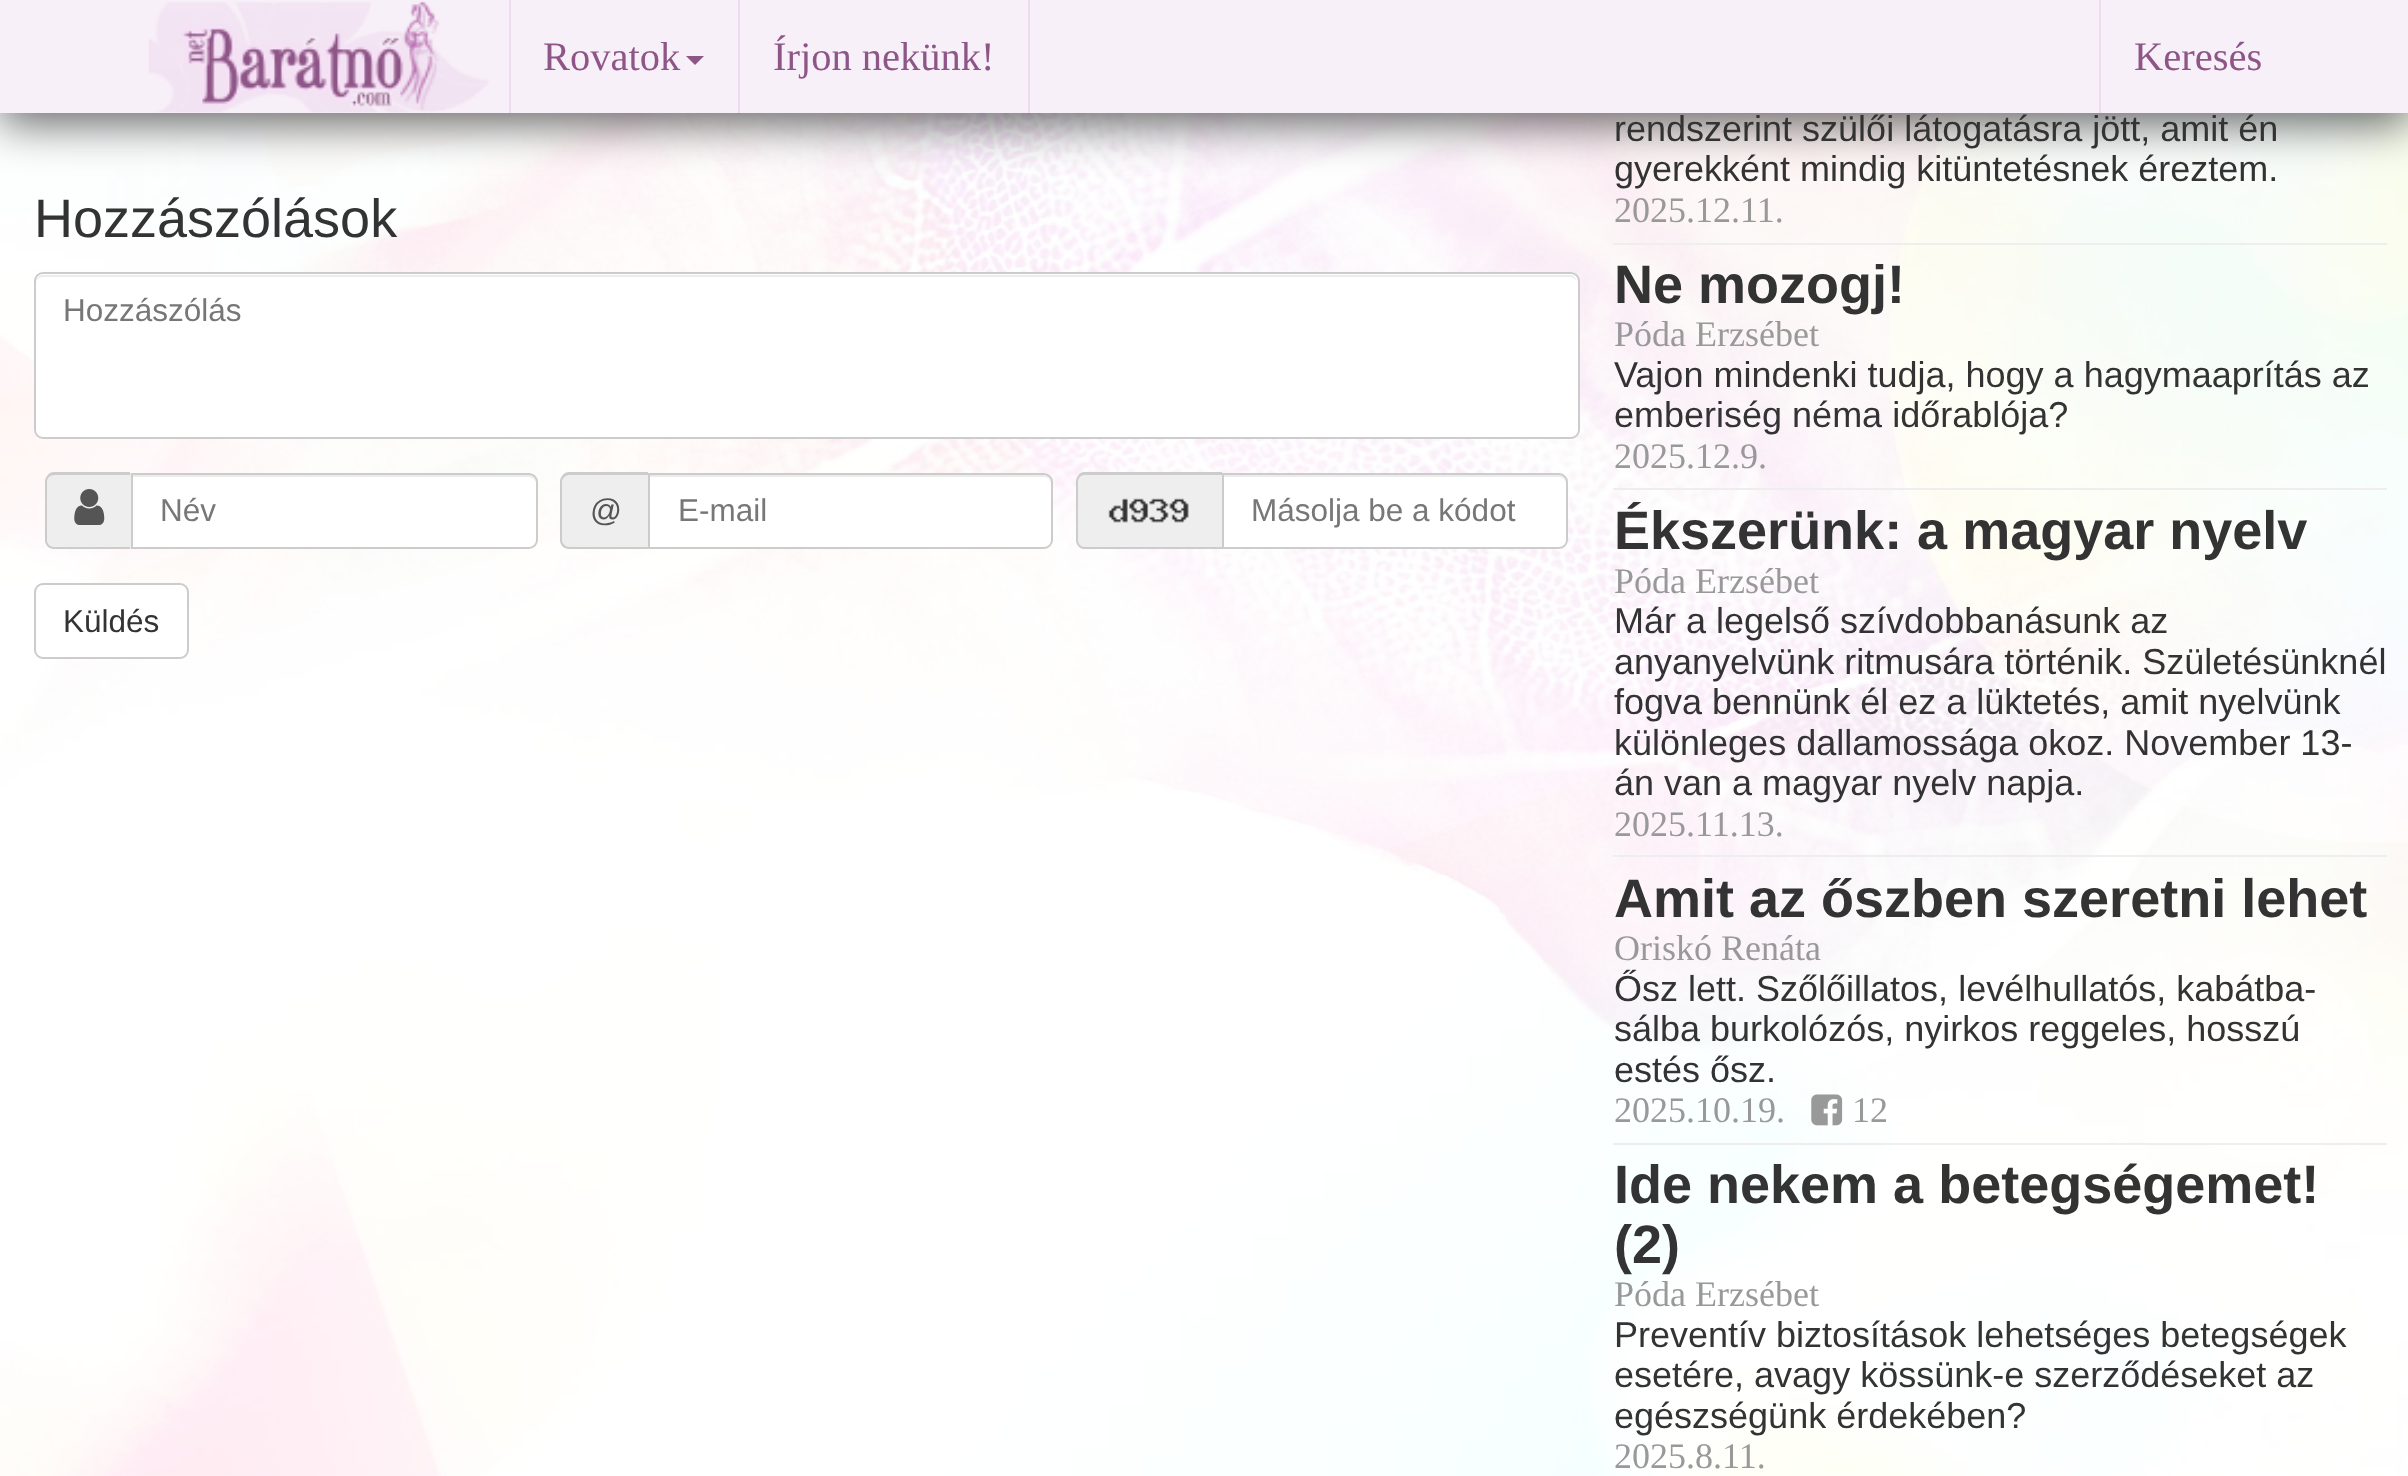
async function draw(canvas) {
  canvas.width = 2408;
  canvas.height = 1476;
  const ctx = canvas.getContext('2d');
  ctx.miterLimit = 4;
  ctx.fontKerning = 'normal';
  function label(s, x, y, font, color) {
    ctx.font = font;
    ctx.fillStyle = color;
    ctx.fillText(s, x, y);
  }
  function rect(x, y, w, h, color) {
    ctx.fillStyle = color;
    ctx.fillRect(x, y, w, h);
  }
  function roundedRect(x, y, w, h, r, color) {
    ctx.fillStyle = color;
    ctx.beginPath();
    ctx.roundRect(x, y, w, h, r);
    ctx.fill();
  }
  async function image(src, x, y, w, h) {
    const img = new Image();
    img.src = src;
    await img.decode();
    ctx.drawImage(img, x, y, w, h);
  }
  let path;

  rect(0, 0, 2408, 1476, '#fff');
  await image('assets/img1.png', 0, 113, 2408, 1363);
  ctx.fillStyle = '#00000099';
  ctx.filter = 'blur(22.5px)';
  ctx.beginPath();
  ctx.rect(0, 11, 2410, 113);
  ctx.fill();
  ctx.filter = 'none';
  rect(0, 0, 2408, 113, '#f8f0f8');
  await image('assets/img2.png', 148, 1, 341, 112);
  rect(509, 0, 2, 113, '#eedbee');
  label('Rovatok', 543, 70, '40.5px Liberation Serif', '#8e5687');
  path = new Path2D('M686 56H704L695 65Z');
  ctx.fill(path);
  rect(738, 0, 2, 113, '#eedbee');
  label('Írjon nekünk!', 773, 70, '40.5px Liberation Serif', '#8e5687');
  rect(1028, 0, 2, 113, '#eedbee');
  rect(2099, 0, 2, 113, '#eedbee');
  label('Keresés', 2134, 70, '40.5px Liberation Serif', '#8e5687');
  label('Hozzászólások', 34, 237, '54px Liberation Sans', '#333');
  roundedRect(34, 272, 1546, 167, 9, '#fff');
  ctx.fillStyle = '#ececec';
  path = new Path2D('M43 277H1570C1574 277 1577 280 1577 284C1577 280 1575 275 1570 275H43C38 275 36 280 36 284C36 280 39 277 43 277Z');
  ctx.fill(path);
  ctx.beginPath();
  ctx.roundRect(35, 273, 1544, 165, 8);
  ctx.strokeStyle = '#ccc';
  ctx.lineWidth = 2;
  ctx.stroke();
  label('Hozzászólás', 63, 321, '31.5px Liberation Sans', '#777');
  ctx.fillStyle = '#eee';
  ctx.beginPath();
  ctx.roundRect(45, 473, 86, 76, [9, 0, 0, 9]);
  ctx.fill();
  ctx.fillStyle = '#ccc';
  path = new Path2D('M54 472H130V549H54C49 549 45 545 45 540V482C45 477 49 472 54 472ZM54 475H130V547H54C50 547 47 544 47 540V482C47 478 50 475 54 475Z');
  ctx.fill(path, 'evenodd');
  await image('assets/img3.png', 74, 489, 31, 36);
  ctx.fillStyle = '#fff';
  ctx.beginPath();
  ctx.roundRect(131, 473, 407, 76, [0, 9, 9, 0]);
  ctx.fill();
  ctx.fillStyle = '#ececec';
  path = new Path2D('M133 477H529C532 477 536 480 536 484C536 480 534 475 529 475H133Z');
  ctx.fill(path);
  ctx.beginPath();
  ctx.roundRect(132, 474, 405, 74, [0, 8, 8, 0]);
  ctx.stroke();
  label('Név', 160, 521, '31.5px Liberation Sans', '#777');
  ctx.fillStyle = '#eee';
  ctx.beginPath();
  ctx.roundRect(560, 473, 88, 76, [9, 0, 0, 9]);
  ctx.fill();
  ctx.fillStyle = '#ccc';
  path = new Path2D('M569 472H648V549H569C564 549 560 545 560 540V482C560 477 564 472 569 472ZM569 475H648V547H569C566 547 562 544 562 540V482C562 478 566 475 569 475Z');
  ctx.fill(path, 'evenodd');
  label('@', 590, 521, '31.5px Liberation Sans', '#555');
  ctx.fillStyle = '#fff';
  ctx.beginPath();
  ctx.roundRect(648, 473, 405, 76, [0, 9, 9, 0]);
  ctx.fill();
  ctx.fillStyle = '#ececec';
  path = new Path2D('M650 477H1044C1048 477 1051 480 1051 484V482C1051 478 1048 475 1044 475H650Z');
  ctx.fill(path);
  ctx.beginPath();
  ctx.roundRect(649, 474, 403, 74, [0, 8, 8, 0]);
  ctx.stroke();
  label('E-mail', 678, 521, '31.5px Liberation Sans', '#777');
  ctx.fillStyle = '#eee';
  ctx.beginPath();
  ctx.roundRect(1076, 473, 146, 76, [9, 0, 0, 9]);
  ctx.fill();
  ctx.fillStyle = '#ccc';
  path = new Path2D('M1084 472H1222V549H1084C1080 549 1076 545 1076 540V482C1076 477 1080 472 1084 472ZM1084 475H1222V547H1084C1081 547 1078 544 1078 540V482C1078 478 1081 475 1084 475Z');
  ctx.fill(path, 'evenodd');
  await image('assets/img4.png', 1108, 498, 81, 25);
  ctx.fillStyle = '#fff';
  ctx.beginPath();
  ctx.roundRect(1222, 473, 346, 76, [0, 9, 9, 0]);
  ctx.fill();
  ctx.fillStyle = '#ececec';
  path = new Path2D('M1224 477H1559C1563 477 1566 480 1566 484C1566 480 1565 476 1560 475H1224Z');
  ctx.fill(path);
  ctx.beginPath();
  ctx.roundRect(1223, 474, 344, 74, [0, 8, 8, 0]);
  ctx.stroke();
  label('Másolja be a kódot', 1251, 521, '31.5px Liberation Sans', '#777');
  ctx.fillStyle = '#fff';
  ctx.beginPath();
  ctx.roundRect(35, 584, 153, 74, 8);
  ctx.fill();
  ctx.stroke();
  label('Küldés', 63, 632, '31.5px Liberation Sans', '#333');
  label('rendszerint szülői látogatásra jött, amit én', 1614, 141, '36px Liberation Sans', '#333');
  label('gyerekként mindig kitüntetésnek éreztem.', 1614, 181, '36px Liberation Sans', '#333');
  label('2025.12.11.', 1614, 222, '36px Liberation Serif', '#999');
  rect(1613, 243, 774, 2, '#eee');
  label('Ne mozogj!', 1614, 303, 'bold 54px Liberation Sans', '#333');
  label('Póda Erzsébet', 1614, 346, '36px Liberation Serif', '#999');
  label('Vajon mindenki tudja, hogy a hagymaaprítás az', 1614, 387, '36px Liberation Sans', '#333');
  label('emberiség néma időrablója?', 1614, 427, '36px Liberation Sans', '#333');
  label('2025.12.9.', 1614, 468, '36px Liberation Serif', '#999');
  rect(1613, 488, 774, 2, '#eee');
  ctx.save();
  ctx.beginPath();
  ctx.rect(1613, 502, 774, 342);
  ctx.clip();
  label('Ékszerünk: a magyar nyelv', 1614, 549, 'bold 54px Liberation Sans', '#333');
  ctx.restore();
  label('Póda Erzsébet', 1614, 593, '36px Liberation Serif', '#999');
  label('Már a legelső szívdobbanásunk az', 1614, 633, '36px Liberation Sans', '#333');
  label('anyanyelvünk ritmusára történik. Születésünknél', 1614, 674, '36px Liberation Sans', '#333');
  label('fogva bennünk él ez a lüktetés, amit nyelvünk', 1614, 714, '36px Liberation Sans', '#333');
  label('különleges dallamossága okoz. November 13-', 1614, 755, '36px Liberation Sans', '#333');
  label('án van a magyar nyelv napja.', 1614, 795, '36px Liberation Sans', '#333');
  label('2025.11.13.', 1614, 836, '36px Liberation Serif', '#999');
  rect(1613, 855, 774, 2, '#eee');
  label('Amit az őszben szeretni lehet', 1614, 917, 'bold 54px Liberation Sans', '#333');
  label('Oriskó Renáta', 1614, 960, '36px Liberation Serif', '#999');
  label('Ősz lett. Szőlőillatos, levélhullatós, kabátba-', 1614, 1001, '36px Liberation Sans', '#333');
  label('sálba burkolózós, nyirkos reggeles, hosszú', 1614, 1041, '36px Liberation Sans', '#333');
  label('estés ősz.', 1614, 1082, '36px Liberation Sans', '#333');
  label('2025.10.19.', 1614, 1122, '36px Liberation Serif', '#999');
  await image('assets/img5.png', 1811, 1094, 32, 32);
  label('12', 1852, 1122, '36px Liberation Serif', '#999');
  rect(1613, 1143, 774, 2, '#eee');
  label('Ide nekem a betegségemet!', 1614, 1203, 'bold 54px Liberation Sans', '#333');
  label('(2)', 1614, 1263, 'bold 54px Liberation Sans', '#333');
  label('Póda Erzsébet', 1614, 1306, '36px Liberation Serif', '#999');
  label('Preventív biztosítások lehetséges betegségek', 1614, 1347, '36px Liberation Sans', '#333');
  label('esetére, avagy kössünk-e szerződéseket az', 1614, 1387, '36px Liberation Sans', '#333');
  label('egészségünk érdekében?', 1614, 1428, '36px Liberation Sans', '#333');
  label('2025.8.11.', 1614, 1468, '36px Liberation Serif', '#999');
}

draw(document.querySelector('canvas'));
